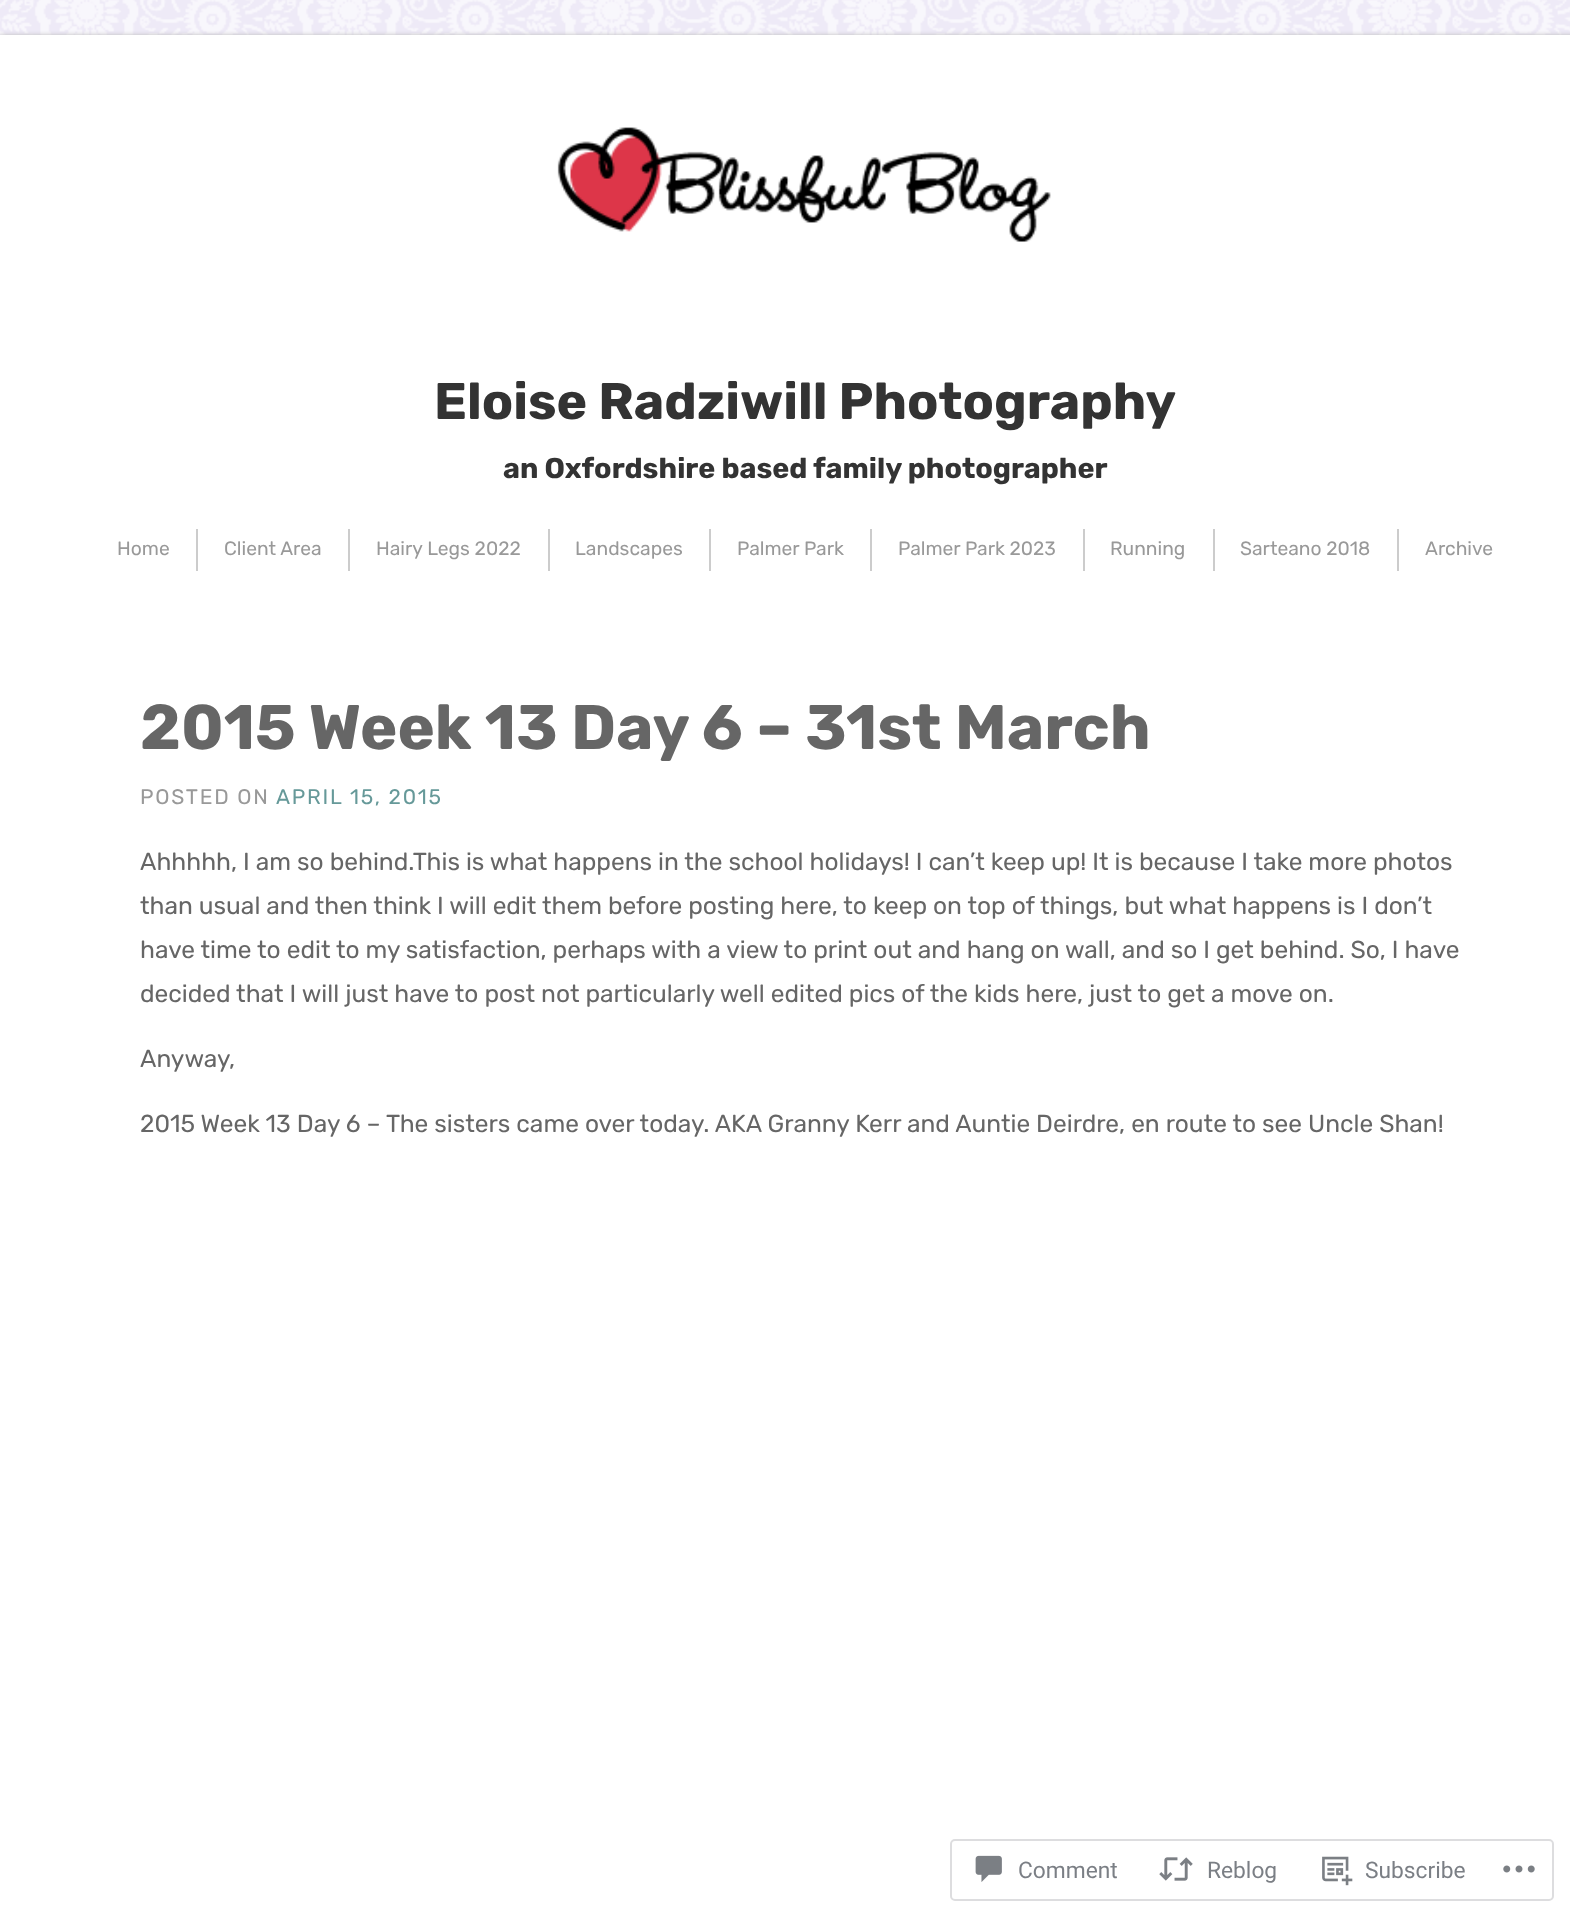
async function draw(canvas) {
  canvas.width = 1570;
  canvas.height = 1917;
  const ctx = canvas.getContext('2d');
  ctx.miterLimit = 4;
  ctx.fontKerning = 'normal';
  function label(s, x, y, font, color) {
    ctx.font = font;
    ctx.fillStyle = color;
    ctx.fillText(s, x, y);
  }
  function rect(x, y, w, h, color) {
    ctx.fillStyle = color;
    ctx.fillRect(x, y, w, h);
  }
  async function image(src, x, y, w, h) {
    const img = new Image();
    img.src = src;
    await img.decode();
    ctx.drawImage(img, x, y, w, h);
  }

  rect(0, 0, 1570, 1917, '#eeeaf7');
  await image('assets/img1.png', 0, 0, 1570, 35);
  ctx.fillStyle = '#bbb';
  ctx.filter = 'blur(2px)';
  ctx.beginPath();
  ctx.rect(0, 35, 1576, 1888);
  ctx.fill();
  ctx.filter = 'none';
  rect(0, 35, 1570, 1882, '#fff');
  await image('assets/img2.png', 557, 127, 494, 115);
  label('Eloise Radziwill Photography', 434, 419, 'bold 51.6px Rubik', '#333');
  label('an Oxfordshire based family photographer', 503, 478, 'bold 28.7px Rubik', '#333');
  label('Home', 117, 555, '19.25px Rubik', '#999');
  rect(196, 529, 2, 42, '#ccc');
  label('Client Area', 224, 555, '19.25px Rubik', '#999');
  rect(348, 529, 2, 42, '#ccc');
  label('Hairy Legs 2022', 376, 555, '19.25px Rubik', '#999');
  rect(548, 529, 2, 42, '#ccc');
  label('Landscapes', 575, 555, '19.25px Rubik', '#999');
  rect(709, 529, 2, 42, '#ccc');
  label('Palmer Park', 737, 555, '19.25px Rubik', '#999');
  rect(870, 529, 2, 42, '#ccc');
  label('Palmer Park 2023', 898, 555, '19.25px Rubik', '#999');
  rect(1083, 529, 2, 42, '#ccc');
  label('Running', 1110, 555, '19.25px Rubik', '#999');
  rect(1213, 529, 2, 42, '#ccc');
  label('Sarteano 2018', 1240, 555, '19.25px Rubik', '#999');
  rect(1397, 529, 2, 42, '#ccc');
  label('Archive', 1425, 555, '19.25px Rubik', '#999');
  label('2015 Week 13 Day 6 – 31st March', 140, 749, 'bold 63px Rubik', '#666');
  ctx.letterSpacing = '1.75px';
  label('POSTED ON', 140, 804, '21px Rubik', '#999');
  label('APRIL 15, 2015', 276, 804, '21px Rubik', '#699');
  ctx.letterSpacing = '0px';
  label('Ahhhhh, I am so behind.This is what happens in the school holidays! I can’t keep up! It is because I take more photos', 140, 870, '24.5px Rubik', '#666');
  label('than usual and then think I will edit them before posting here, to keep on top of things, but what happens is I don’t', 140, 914, '24.5px Rubik', '#666');
  label('have time to edit to my satisfaction, perhaps with a view to print out and hang on wall, and so I get behind. So, I have', 140, 958, '24.5px Rubik', '#666');
  label('decided that I will just have to post not particularly well edited pics of the kids here, just to get a move on.', 140, 1002, '24.5px Rubik', '#666');
  label('Anyway,', 140, 1067, '24.5px Rubik', '#666');
  label('2015 Week 13 Day 6 – The sisters came over today. AKA Granny Kerr and Auntie Deirdre, en route to see Uncle Shan!', 140, 1132, '24.5px Rubik', '#666');
  ctx.beginPath();
  ctx.roundRect(951, 1840, 602, 60, 4);
  ctx.strokeStyle = '#dddddf';
  ctx.lineWidth = 2;
  ctx.stroke();
  await image('assets/img3.png', 975, 1855, 27, 27);
  label('Comment', 1018, 1878, '22.75px Roboto', '#7b7f85');
  await image('assets/img4.png', 1159, 1857, 34, 24);
  label('Reblog', 1207, 1878, '22.75px Roboto', '#7b7f85');
  await image('assets/img5.png', 1322, 1856, 31, 30);
  label('Subscribe', 1365, 1878, '22.75px Roboto', '#7b7f85');
  await image('assets/img6.png', 1503, 1865, 32, 8);
}

draw(document.querySelector('canvas'));
